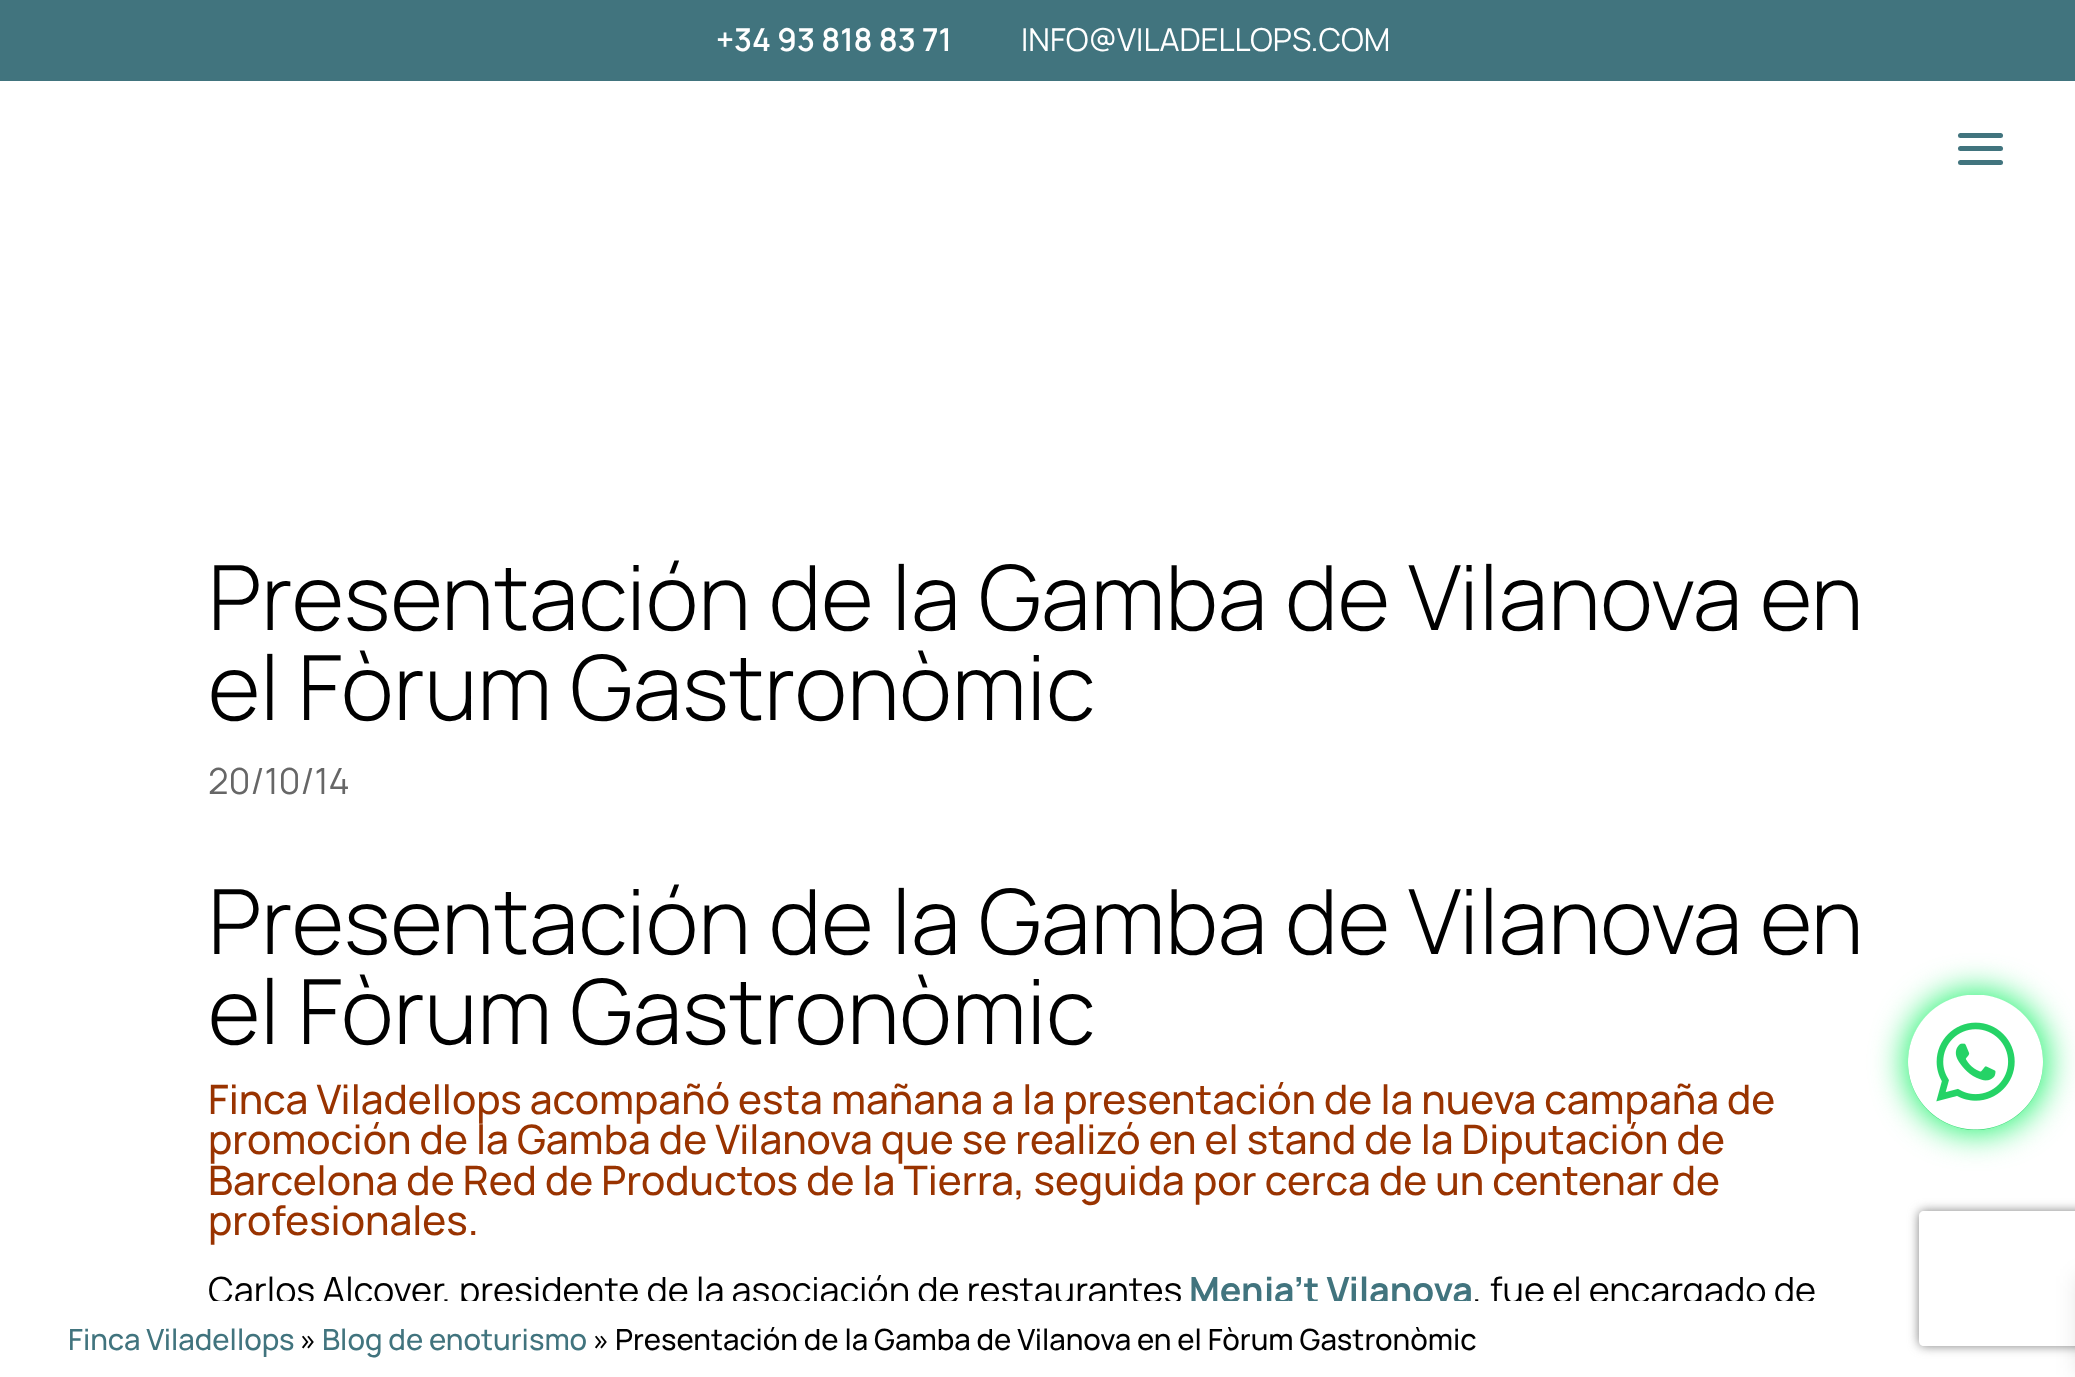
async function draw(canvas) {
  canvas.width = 2075;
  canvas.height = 1377;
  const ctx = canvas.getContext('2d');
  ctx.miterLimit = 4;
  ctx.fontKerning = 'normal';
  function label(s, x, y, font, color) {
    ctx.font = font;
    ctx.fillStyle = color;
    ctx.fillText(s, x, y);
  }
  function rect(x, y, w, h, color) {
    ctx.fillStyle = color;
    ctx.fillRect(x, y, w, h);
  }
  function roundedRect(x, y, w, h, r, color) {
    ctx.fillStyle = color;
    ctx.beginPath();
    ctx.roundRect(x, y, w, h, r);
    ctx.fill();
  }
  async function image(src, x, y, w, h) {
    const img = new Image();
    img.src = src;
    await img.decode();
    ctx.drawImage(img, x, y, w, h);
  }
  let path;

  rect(0, 0, 2075, 1377, '#fff');
  rect(0, 0, 2075, 81, '#41747e');
  label('+34 93 818 83 71', 716, 51, '200 31.5px "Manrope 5"', '#fff');
  label('INFO@VILADELLOPS.COM', 1021, 51, '200 31.5px "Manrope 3"', '#fff');
  roundedRect(1958, 146, 45, 5, 2.5, '#41747e');
  roundedRect(1958, 133, 45, 5, 2.5, '#41747e');
  roundedRect(1958, 160, 45, 5, 2.5, '#41747e');
  label('Presentación de la Gamba de Vilanova en', 208, 630, '200 90px Manrope', '#000');
  label('el Fòrum Gastronòmic', 208, 720, '200 90px Manrope', '#000');
  label('20/10/14', 208, 794, '200 36px "Manrope 3"', '#666');
  label('Presentación de la Gamba de Vilanova en', 208, 954, '200 90px Manrope', '#000');
  label('el Fòrum Gastronòmic', 208, 1044, '200 90px Manrope', '#000');
  label('Finca Viladellops acompañó esta mañana a la presentación de la nueva campaña de', 208, 1114, '200 40.5px "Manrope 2"', '#930');
  label('promoción de la Gamba de Vilanova que se realizó en el stand de la Diputación de', 208, 1154, '200 40.5px "Manrope 2"', '#930');
  label('Barcelona de Red de Productos de la Tierra, seguida por cerca de un centenar de', 208, 1195, '200 40.5px "Manrope 2"', '#930');
  label('profesionales.', 208, 1235, '200 40.5px "Manrope 2"', '#930');
  label('Carlos Alcover, presidente de la asociación de restaurantes', 208, 1303, '200 36px "Manrope 3"', '#000');
  label('Menja’t Vilanova', 1189, 1303, '200 36px "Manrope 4"', '#41747e');
  label(', fue el encargado de', 1473, 1303, '200 36px "Manrope 3"', '#000');
  rect(213, 1301, 1600, 12, '#fff');
  label('Finca Viladellops', 68, 1350, '200 29.25px "Manrope 2"', '#41747e');
  label('»', 300, 1350, '200 29.25px "Manrope 2"', '#000');
  label('Blog de enoturismo', 322, 1350, '200 29.25px "Manrope 2"', '#41747e');
  label('» Presentación de la Gamba de Vilanova en el Fòrum Gastronòmic', 593, 1350, '200 29.25px "Manrope 2"', '#000');
  ctx.fillStyle = '#2bf375';
  ctx.filter = 'blur(16px)';
  ctx.beginPath();
  ctx.roundRect(1904, 990, 144, 144, 72);
  ctx.fill();
  ctx.filter = 'none';
  ctx.fillStyle = '#25d366';
  ctx.beginPath();
  ctx.arc(1975.5, 1062.5, 67.5, 0, 2 * Math.PI);
  ctx.fill();
  await image('assets/img1.png', 1908, 995, 135, 135);
  ctx.save();
  path = new Path2D('M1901 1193H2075V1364H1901ZM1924 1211H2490C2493 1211 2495 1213 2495 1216V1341C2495 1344 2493 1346 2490 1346H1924C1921 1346 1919 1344 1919 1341V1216C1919 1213 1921 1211 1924 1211Z');
  ctx.clip(path, 'evenodd');
  ctx.fillStyle = '#808080';
  ctx.filter = 'blur(5.5px)';
  ctx.beginPath();
  ctx.roundRect(1919, 1211, 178, 135, 5);
  ctx.fill();
  ctx.filter = 'none';
  ctx.restore();
  ctx.fillStyle = '#0000001a';
  ctx.filter = 'blur(11px)';
  ctx.beginPath();
  ctx.rect(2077, 1276, 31, 99);
  ctx.fill();
  ctx.filter = 'none';
}

draw(document.querySelector('canvas'));
